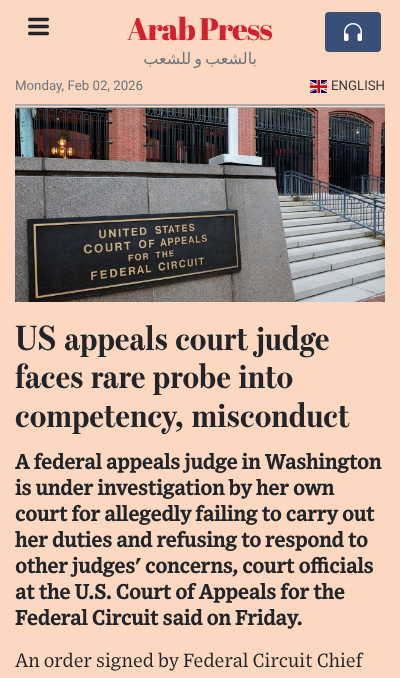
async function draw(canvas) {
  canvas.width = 400;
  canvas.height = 678;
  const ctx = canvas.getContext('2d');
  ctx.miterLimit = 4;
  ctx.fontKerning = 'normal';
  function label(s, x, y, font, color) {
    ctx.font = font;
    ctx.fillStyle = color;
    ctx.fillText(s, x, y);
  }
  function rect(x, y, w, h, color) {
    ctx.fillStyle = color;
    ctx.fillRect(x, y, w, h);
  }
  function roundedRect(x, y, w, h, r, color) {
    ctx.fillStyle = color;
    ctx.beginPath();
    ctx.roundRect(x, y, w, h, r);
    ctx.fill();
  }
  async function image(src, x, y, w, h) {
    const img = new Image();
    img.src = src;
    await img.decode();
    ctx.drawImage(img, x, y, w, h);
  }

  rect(0, 0, 400, 678, '#fcd8c0');
  await image('assets/img1.png', 28, 17, 21, 19);
  ctx.letterSpacing = '-1px';
  label('Arab Press', 127, 40, '31px Abril Fatface', '#d2222d');
  roundedRect(325, 12, 56, 40, 4, '#394f78');
  await image('assets/img2.png', 344, 23, 18, 18);
  ctx.letterSpacing = '0px';
  ctx.wordSpacing = '-2px';
  ctx.direction = 'rtl';
  label('بالشعب و للشعب', 257, 64, '16px DejaVu Sans', '#6c757d');
  ctx.wordSpacing = '0px';
  ctx.direction = 'ltr';
  label('Monday, Feb 02, 2026', 15, 90, '13.25px Roboto', '#6c757d');
  await image('assets/img3.png', 310, 80, 17, 14);
  label('ENGLISH', 331, 90, '13.25px Roboto', '#343a40');
  rect(15, 104, 370, 2, '#aaa');
  rect(15, 107, 370, 1, '#aaa');
  await image('assets/img4.png', 15, 108, 370, 194);
  label('US appeals court judge', 15, 350, 'bold 35.25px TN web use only', '#212529');
  label('faces rare probe into', 15, 388, 'bold 35.25px TN web use only', '#212529');
  label('competency, misconduct', 15, 427, 'bold 35.25px TN web use only', '#212529');
  label('A federal appeals judge in Washington', 15, 469, 'bold 20.75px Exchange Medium', '#212529');
  label('is under investigation by her own', 15, 495, 'bold 20.75px Exchange Medium', '#212529');
  label('court for allegedly failing to carry out', 15, 521, 'bold 20.75px Exchange Medium', '#212529');
  label('her duties and refusing to respond to', 15, 547, 'bold 20.75px Exchange Medium', '#212529');
  label('other judges\' concerns, court officials', 15, 573, 'bold 20.75px Exchange Medium', '#212529');
  label('at the U.S. Court of Appeals for the', 15, 599, 'bold 20.75px Exchange Medium', '#212529');
  label('Federal Circuit said on Friday.', 15, 625, 'bold 20.75px Exchange Medium', '#212529');
  label('An order signed by Federal Circuit Chief', 15, 667, '19.25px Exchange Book', '#212529');
}

draw(document.querySelector('canvas'));
